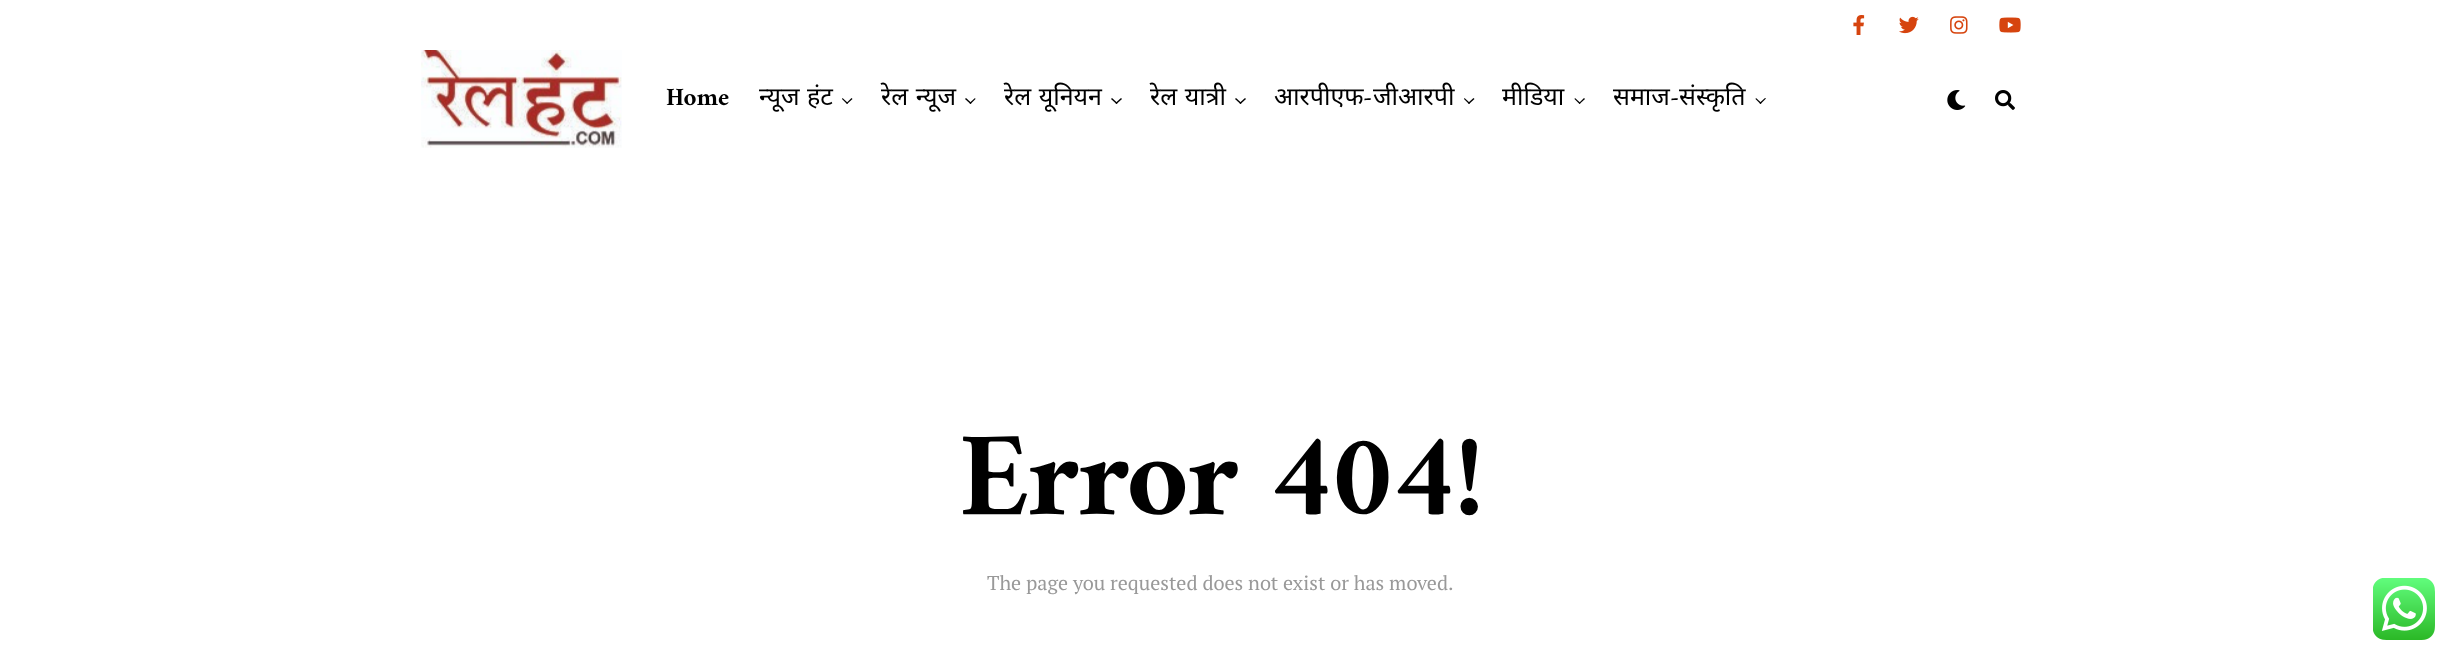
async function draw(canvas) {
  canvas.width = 2441;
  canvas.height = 646;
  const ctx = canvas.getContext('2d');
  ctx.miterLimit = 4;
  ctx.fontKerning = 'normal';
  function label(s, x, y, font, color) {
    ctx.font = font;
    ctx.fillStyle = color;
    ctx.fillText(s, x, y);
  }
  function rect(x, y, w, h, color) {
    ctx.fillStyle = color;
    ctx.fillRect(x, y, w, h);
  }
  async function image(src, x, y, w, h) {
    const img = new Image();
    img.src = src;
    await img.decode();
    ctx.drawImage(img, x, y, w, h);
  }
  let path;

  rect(0, 0, 2441, 646, '#fff');
  await image('assets/img1.png', 1853, 15, 12, 20);
  await image('assets/img2.png', 1899, 16, 20, 18);
  await image('assets/img3.png', 1950, 16, 18, 18);
  await image('assets/img4.png', 1999, 17, 22, 16);
  await image('assets/img5.png', 421, 50, 201, 98);
  label('Home', 666, 105, 'bold 25px Amiri', '#000');
  ctx.wordSpacing = '1px';
  label('न्यूज हंट', 759, 105, '25px Noto Sans', '#000');
  path = new Path2D('M851.5 98L852.5 99L847 104L846.5 103Z');
  ctx.fill(path);
  path = new Path2D('M842.5 98L848 103L847 104L842 99Z');
  ctx.fill(path);
  label('रेल न्यूज', 881, 105, '25px Noto Sans', '#000');
  path = new Path2D('M975 98L975.5 99L970.5 104L969.5 103Z');
  ctx.fill(path);
  path = new Path2D('M966 98L971.5 103L970.5 104L965 99Z');
  ctx.fill(path);
  label('रेल यूनियन', 1004, 105, '25px Noto Sans', '#000');
  path = new Path2D('M1121 98L1122 99L1116.5 104L1115.5 103Z');
  ctx.fill(path);
  path = new Path2D('M1112 98L1117.5 103L1116.5 104L1111 99Z');
  ctx.fill(path);
  label('रेल यात्री', 1150, 105, '25px Noto Sans', '#000');
  path = new Path2D('M1245 98L1246 99L1240.5 104L1239.5 103Z');
  ctx.fill(path);
  path = new Path2D('M1236 98L1241.5 103L1240.5 104L1235 99Z');
  ctx.fill(path);
  ctx.wordSpacing = '0px';
  label('आरपीएफ', 1274, 105, '25px Noto Sans', '#000');
  label('-', 1363, 105, 'bold 25px Amiri', '#000');
  label('जीआरपी', 1373, 105, '25px Noto Sans', '#000');
  path = new Path2D('M1473.5 98L1474.5 99L1469 104L1468 103Z');
  ctx.fill(path);
  path = new Path2D('M1464.5 98L1470 103L1469 104L1464 99Z');
  ctx.fill(path);
  label('मीडिया', 1502, 105, '25px Noto Sans', '#000');
  path = new Path2D('M1584 98L1585 99L1579.5 104L1579 103Z');
  ctx.fill(path);
  path = new Path2D('M1575 98L1580.5 103L1579.5 104L1574.5 99Z');
  ctx.fill(path);
  label('समाज', 1613, 105, '25px Noto Sans', '#000');
  label('-', 1670, 105, 'bold 25px Amiri', '#000');
  label('संस्कृति', 1679, 105, '25px Noto Sans', '#000');
  path = new Path2D('M1765 98L1766 98.5L1760.5 104L1759.5 103Z');
  ctx.fill(path);
  path = new Path2D('M1756 98L1761.5 103L1760.5 104L1755.5 99Z');
  ctx.fill(path);
  await image('assets/img6.png', 1947, 90, 19, 20);
  await image('assets/img7.png', 1995, 90, 20, 20);
  ctx.letterSpacing = '-2.4px';
  label('Error 404!', 959, 514, 'bold 120px Amiri', '#000');
  ctx.letterSpacing = '0px';
  label('The page you requested does not exist or has moved.', 987, 590, '20px PT Serif', '#999');
  await image('assets/img8.png', 2373, 578, 62, 62);
}

draw(document.querySelector('canvas'));
